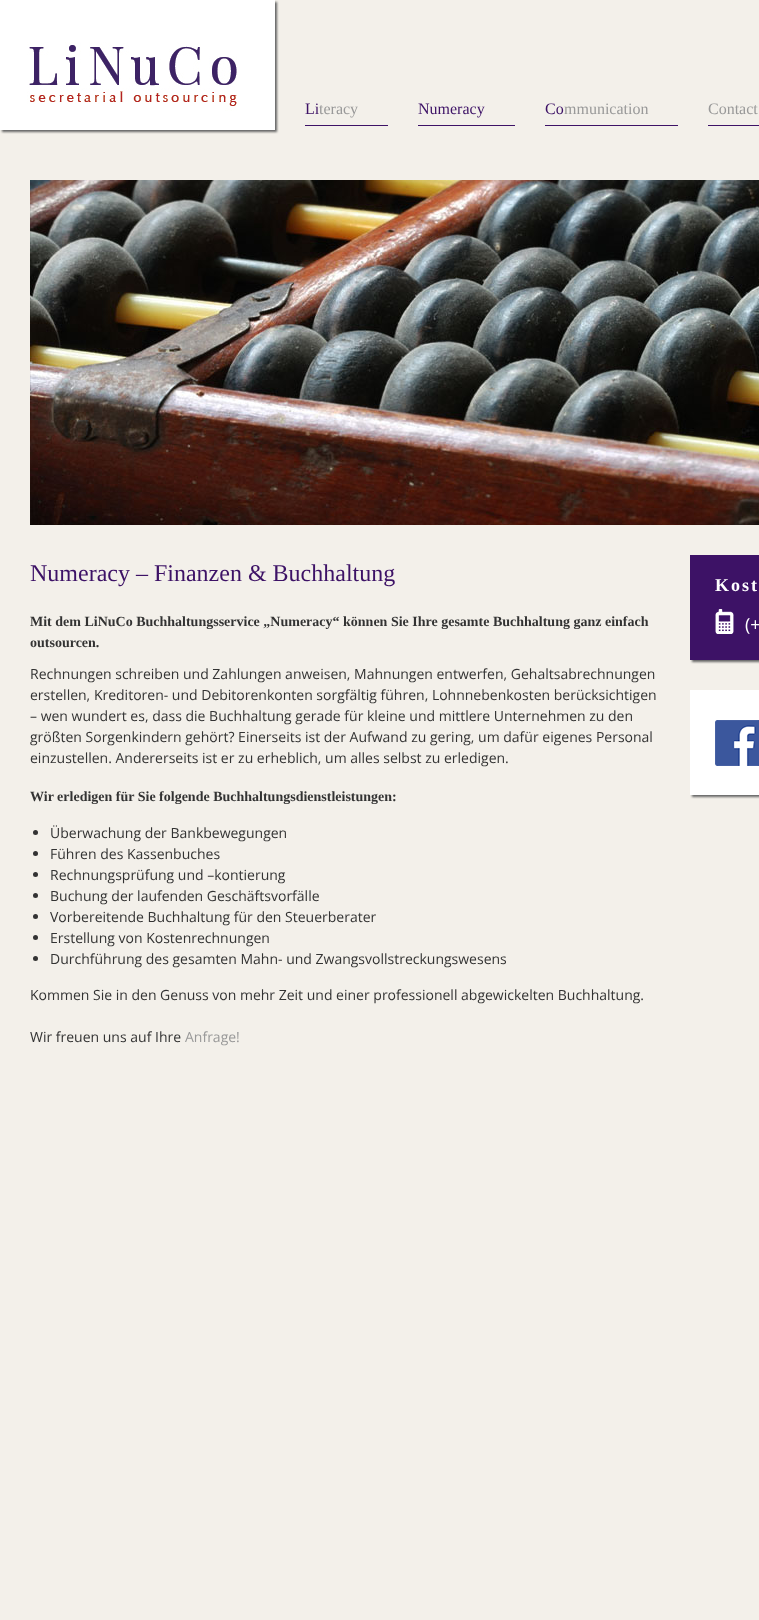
async function draw(canvas) {
  canvas.width = 759;
  canvas.height = 1620;
  const ctx = canvas.getContext('2d');
  ctx.miterLimit = 4;
  ctx.fontKerning = 'normal';
  function label(s, x, y, font, color) {
    ctx.font = font;
    ctx.fillStyle = color;
    ctx.fillText(s, x, y);
  }
  function rect(x, y, w, h, color) {
    ctx.fillStyle = color;
    ctx.fillRect(x, y, w, h);
  }
  async function image(src, x, y, w, h) {
    const img = new Image();
    img.src = src;
    await img.decode();
    ctx.drawImage(img, x, y, w, h);
  }

  rect(0, 0, 759, 1620, '#f3f0ea');
  ctx.fillStyle = '#666';
  ctx.filter = 'blur(1px)';
  ctx.beginPath();
  ctx.rect(2, 2, 275, 130);
  ctx.fill();
  ctx.filter = 'none';
  rect(0, 0, 275, 130, '#fff');
  await image('assets/img1.png', 27, 42, 210, 69);
  rect(305, 125, 83, 1, '#3d1266');
  label('Li', 305, 114, '16px Liberation Serif', '#3d1266');
  label('teracy', 319, 114, '16px Liberation Serif', '#999');
  rect(418, 125, 97, 1, '#3d1266');
  label('Numeracy', 418, 114, '16px Liberation Serif', '#3d1266');
  rect(545, 125, 133, 1, '#3d1266');
  label('Co', 545, 114, '16px Liberation Serif', '#3d1266');
  label('mmunication', 564, 114, '16px Liberation Serif', '#999');
  rect(708, 125, 51, 1, '#3d1266');
  label('Contact', 708, 114, '16px Liberation Serif', '#999');
  await image('assets/img2.png', 30, 180, 729, 345);
  label('Numeracy – Finanzen & Buchhaltung', 30, 581, '24px Liberation Serif', '#3d1266');
  label('Mit dem LiNuCo Buchhaltungsservice „Numeracy“ können Sie Ihre gesamte Buchhaltung ganz einfach', 30, 626, 'bold 14px Liberation Serif', '#333');
  label('outsourcen.', 30, 647, 'bold 14px Liberation Serif', '#333');
  label('Rechnungen schreiben und Zahlungen anweisen, Mahnungen entwerfen, Gehaltsabrechnungen', 30, 679, '14px Open Sans', '#333');
  label('erstellen, Kreditoren- und Debitorenkonten sorgfältig führen, Lohnnebenkosten berücksichtigen', 30, 700, '14px Open Sans', '#333');
  label('– wen wundert es, dass die Buchhaltung gerade für kleine und mittlere Unternehmen zu den', 30, 721, '14px Open Sans', '#333');
  label('größten Sorgenkindern gehört? Einerseits ist der Aufwand zu gering, um dafür eigenes Personal', 30, 742, '14px Open Sans', '#333');
  label('einzustellen. Andererseits ist er zu erheblich, um alles selbst zu erledigen.', 30, 763, '14px Open Sans', '#333');
  label('Wir erledigen für Sie folgende Buchhaltungsdienstleistungen:', 30, 801, 'bold 14px Liberation Serif', '#333');
  ctx.beginPath();
  ctx.arc(35.5, 832.5, 2.5, 0, 2 * Math.PI);
  ctx.fill();
  label('Überwachung der Bankbewegungen', 50, 838, '14px Open Sans', '#333');
  ctx.beginPath();
  ctx.arc(35.5, 853.5, 2.5, 0, 2 * Math.PI);
  ctx.fill();
  label('Führen des Kassenbuches', 50, 859, '14px Open Sans', '#333');
  ctx.beginPath();
  ctx.arc(35.5, 874.5, 2.5, 0, 2 * Math.PI);
  ctx.fill();
  label('Rechnungsprüfung und –kontierung', 50, 880, '14px Open Sans', '#333');
  ctx.beginPath();
  ctx.arc(35.5, 895.5, 2.5, 0, 2 * Math.PI);
  ctx.fill();
  label('Buchung der laufenden Geschäftsvorfälle', 50, 901, '14px Open Sans', '#333');
  ctx.beginPath();
  ctx.arc(35.5, 916.5, 2.5, 0, 2 * Math.PI);
  ctx.fill();
  label('Vorbereitende Buchhaltung für den Steuerberater', 50, 922, '14px Open Sans', '#333');
  ctx.beginPath();
  ctx.arc(35.5, 937.5, 2.5, 0, 2 * Math.PI);
  ctx.fill();
  label('Erstellung von Kostenrechnungen', 50, 943, '14px Open Sans', '#333');
  ctx.beginPath();
  ctx.arc(35.5, 958.5, 2.5, 0, 2 * Math.PI);
  ctx.fill();
  label('Durchführung des gesamten Mahn- und Zwangsvollstreckungswesens', 50, 964, '14px Open Sans', '#333');
  label('Kommen Sie in den Genuss von mehr Zeit und einer professionell abgewickelten Buchhaltung.', 30, 1000, '14px Open Sans', '#333');
  label('Wir freuen uns auf Ihre', 30, 1042, '14px Open Sans', '#333');
  label('Anfrage!', 185, 1042, '14px Open Sans', '#999');
  ctx.fillStyle = '#666';
  ctx.filter = 'blur(1px)';
  ctx.beginPath();
  ctx.rect(692, 557, 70, 105);
  ctx.fill();
  ctx.filter = 'none';
  rect(690, 555, 69, 105, '#3d1266');
  ctx.letterSpacing = '2px';
  label('Kost', 715, 591, 'bold 18px Liberation Serif', '#fff');
  await image('assets/img3.png', 715, 609, 19, 25);
  ctx.letterSpacing = '0px';
  label('(+', 745, 631, '18px Open Sans', '#fff');
  ctx.fillStyle = '#666';
  ctx.filter = 'blur(1px)';
  ctx.beginPath();
  ctx.rect(692, 692, 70, 105);
  ctx.fill();
  ctx.filter = 'none';
  rect(690, 690, 69, 105, '#fff');
  await image('assets/img4.png', 715, 720, 44, 46);
}

draw(document.querySelector('canvas'));
